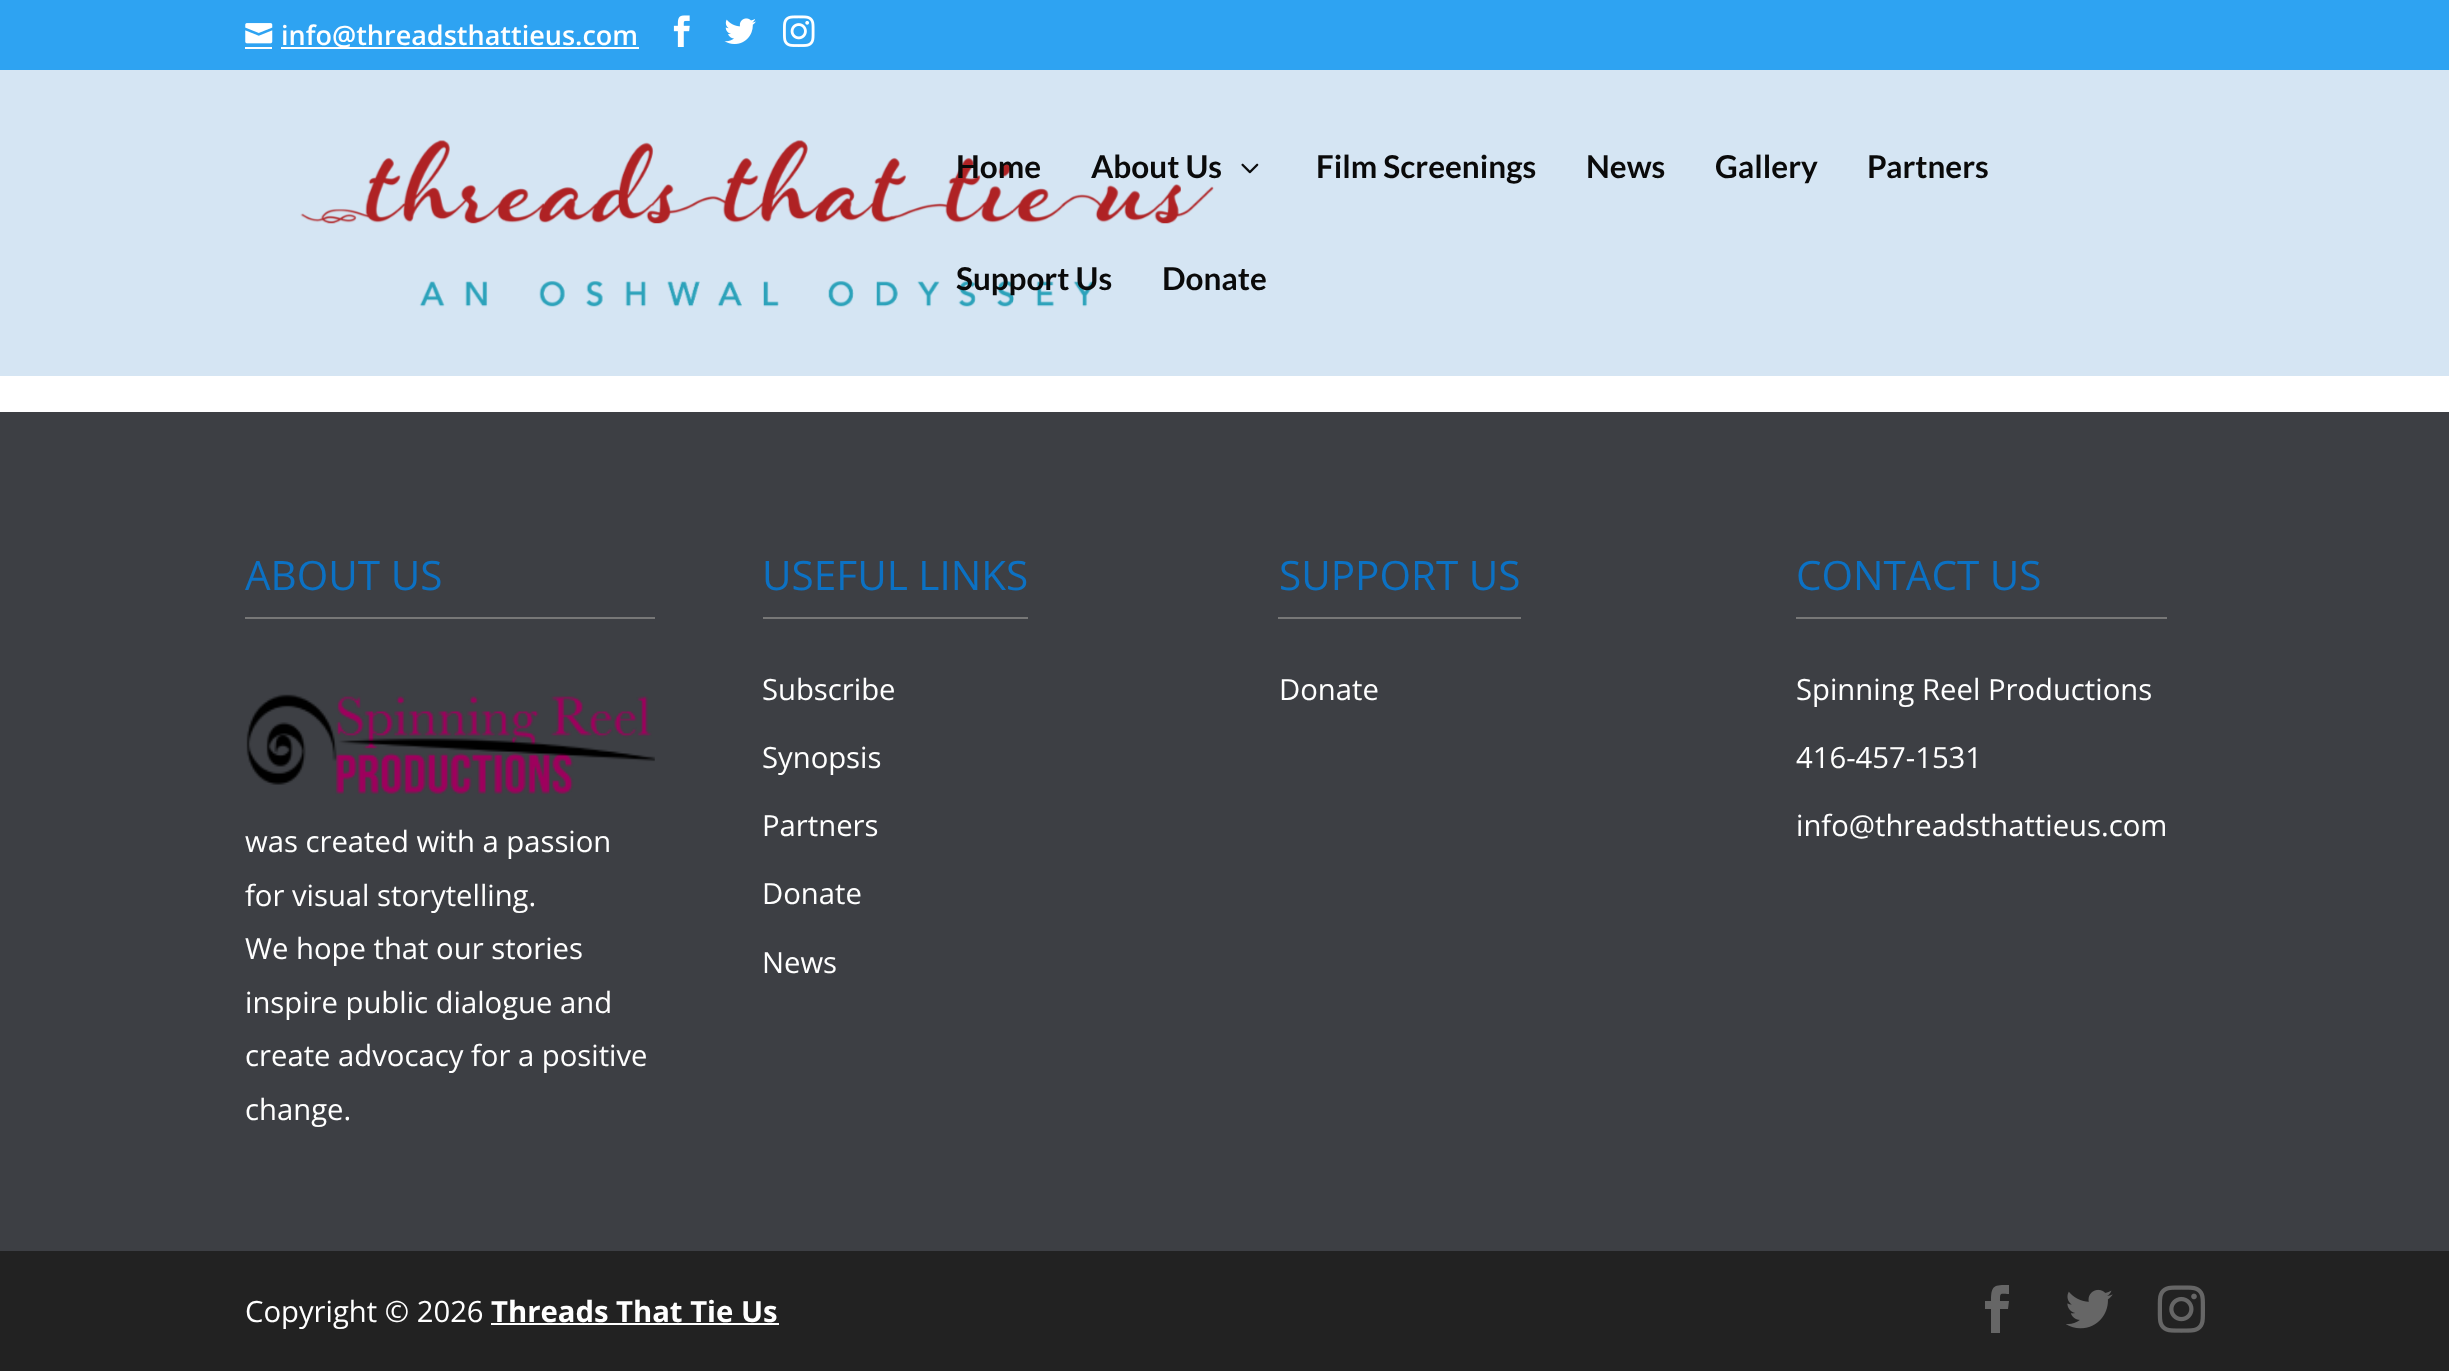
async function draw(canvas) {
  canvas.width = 2449;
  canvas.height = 1371;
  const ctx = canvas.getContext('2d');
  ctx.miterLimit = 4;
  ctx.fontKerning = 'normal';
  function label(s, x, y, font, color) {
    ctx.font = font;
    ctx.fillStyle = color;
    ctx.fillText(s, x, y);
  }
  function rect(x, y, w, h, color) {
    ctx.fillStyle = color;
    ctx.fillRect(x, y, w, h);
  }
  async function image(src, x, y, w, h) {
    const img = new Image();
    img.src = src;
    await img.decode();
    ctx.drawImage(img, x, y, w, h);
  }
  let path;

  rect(0, 0, 2449, 1371, '#3d3f44');
  rect(0, 0, 2449, 70, '#2ea3f2');
  await image('assets/img1.png', 245, 23, 28, 21);
  rect(281, 47, 358, 2, '#fff');
  label('info@threadsthattieus.com', 281, 45, '600 27px Open Sans', '#fff');
  rect(245, 47, 27, 2, '#fff');
  await image('assets/img2.png', 673, 15, 17, 32);
  await image('assets/img3.png', 724, 18, 32, 26);
  await image('assets/img4.png', 783, 15, 32, 32);
  rect(0, 70, 2449, 306, '#d5e5f3');
  await image('assets/img5.png', 300, 140, 914, 167);
  label('Home', 956, 178, 'bold 31.5px Lato', '#0a0a0a');
  label('About Us', 1091, 178, 'bold 31.5px Lato', '#0a0a0a');
  await image('assets/img6.png', 1241, 163, 18, 11);
  label('Film Screenings', 1316, 178, 'bold 31.5px Lato', '#0a0a0a');
  label('News', 1586, 178, 'bold 31.5px Lato', '#0a0a0a');
  label('Gallery', 1715, 178, 'bold 31.5px Lato', '#0a0a0a');
  label('Partners', 1867, 178, 'bold 31.5px Lato', '#0a0a0a');
  label('Support Us', 956, 290, 'bold 31.5px Lato', '#0a0a0a');
  label('Donate', 1162, 290, 'bold 31.5px Lato', '#0a0a0a');
  rect(0, 376, 2449, 36, '#fff');
  rect(245, 617, 410, 2, '#777');
  label('ABOUT US', 245, 590, '40.5px Open Sans', '#0c71c3');
  await image('assets/img7.png', 246, 694, 409, 100);
  label('was created with a passion', 245, 852, '29.25px Open Sans', '#fff');
  label('for visual storytelling.', 245, 906, '29.25px Open Sans', '#fff');
  label('We hope that our stories', 245, 959, '29.25px Open Sans', '#fff');
  label('inspire public dialogue and', 245, 1013, '29.25px Open Sans', '#fff');
  label('create advocacy for a positive', 245, 1066, '29.25px Open Sans', '#fff');
  label('change.', 245, 1120, '29.25px Open Sans', '#fff');
  rect(763, 617, 265, 2, '#777');
  label('USEFUL LINKS', 762, 590, '40.5px Open Sans', '#0c71c3');
  label('Subscribe', 762, 700, '29.25px Open Sans', '#fff');
  label('Synopsis', 762, 768, '29.25px Open Sans', '#fff');
  label('Partners', 762, 836, '29.25px Open Sans', '#fff');
  label('Donate', 762, 904, '29.25px Open Sans', '#fff');
  label('News', 762, 973, '29.25px Open Sans', '#fff');
  rect(1278, 617, 243, 2, '#777');
  label('SUPPORT US', 1279, 590, '40.5px Open Sans', '#0c71c3');
  label('Donate', 1279, 700, '29.25px Open Sans', '#fff');
  rect(1796, 617, 371, 2, '#777');
  label('CONTACT US', 1796, 590, '40.5px Open Sans', '#0c71c3');
  label('Spinning Reel Productions', 1796, 700, '29.25px Open Sans', '#fff');
  label('416-457-1531', 1796, 768, '29.25px Open Sans', '#fff');
  label('info@threadsthattieus.com', 1796, 836, '29.25px Open Sans', '#fff');
  rect(0, 1251, 2449, 120, '#222');
  label('Copyright © 2026', 245, 1322, '29.25px Open Sans', '#fff');
  label('Threads That Tie Us', 491, 1322, 'bold 29.25px Open Sans', '#fff');
  rect(491, 1323, 288, 2, '#fff');
  ctx.fillStyle = '#666';
  path = new Path2D('M1991 1333H2000V1309H2008L2009 1301H2000C2000 1292 2000 1294 2009 1294V1285C1994 1285 1991 1285 1991 1301H1985V1309H1991Z');
  ctx.fill(path);
  await image('assets/img8.png', 2066, 1289, 47, 40);
  await image('assets/img9.png', 2157, 1285, 48, 48);
}

draw(document.querySelector('canvas'));
